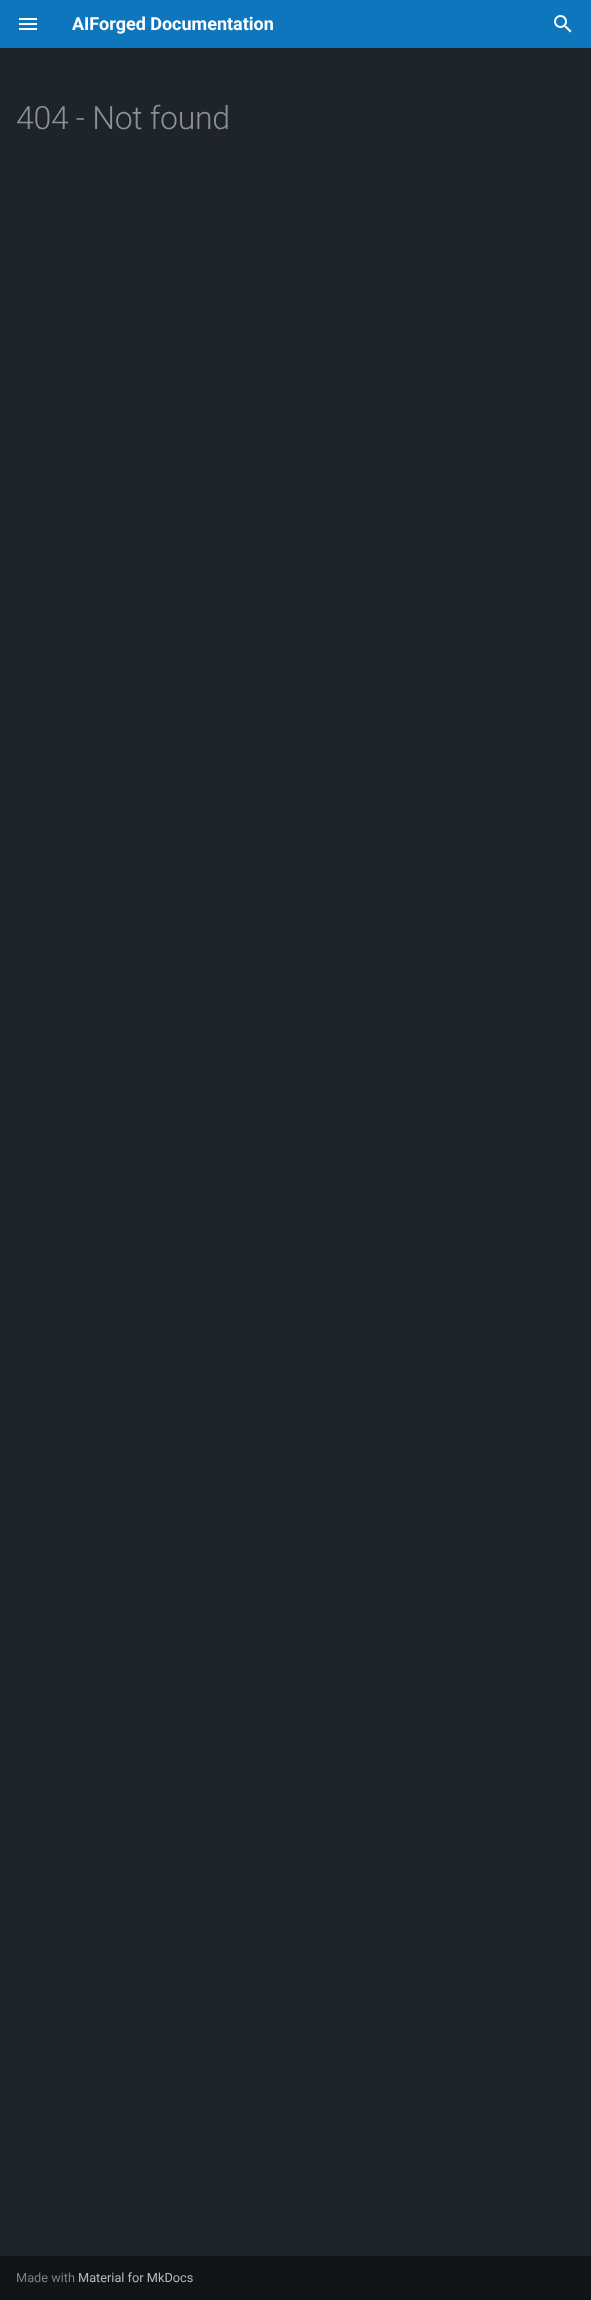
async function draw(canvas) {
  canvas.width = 591;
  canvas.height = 2300;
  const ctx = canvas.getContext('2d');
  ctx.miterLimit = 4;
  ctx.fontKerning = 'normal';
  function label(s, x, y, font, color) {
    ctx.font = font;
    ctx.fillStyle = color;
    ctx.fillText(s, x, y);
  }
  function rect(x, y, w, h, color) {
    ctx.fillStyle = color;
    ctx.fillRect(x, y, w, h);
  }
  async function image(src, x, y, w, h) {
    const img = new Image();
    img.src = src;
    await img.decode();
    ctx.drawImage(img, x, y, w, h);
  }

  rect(0, 0, 591, 2300, '#1e2429');
  rect(0, 0, 591, 48, '#0e76bc');
  await image('assets/img1.png', 19, 18, 18, 12);
  label('AIForged Documentation', 72, 30, 'bold 18px Roboto', '#fff');
  await image('assets/img2.png', 554, 15, 18, 18);
  ctx.letterSpacing = '-0.3px';
  label('404 - Not found', 16, 129, '300 32px Roboto', '#8c9195');
  rect(0, 2256, 591, 44, '#111417');
  ctx.letterSpacing = '0px';
  label('Made with', 16, 2282, '12.75px Roboto', '#7c7e7f');
  label('Material for MkDocs', 78, 2282, '12.75px Roboto', '#b8b9b9');
}

draw(document.querySelector('canvas'));
